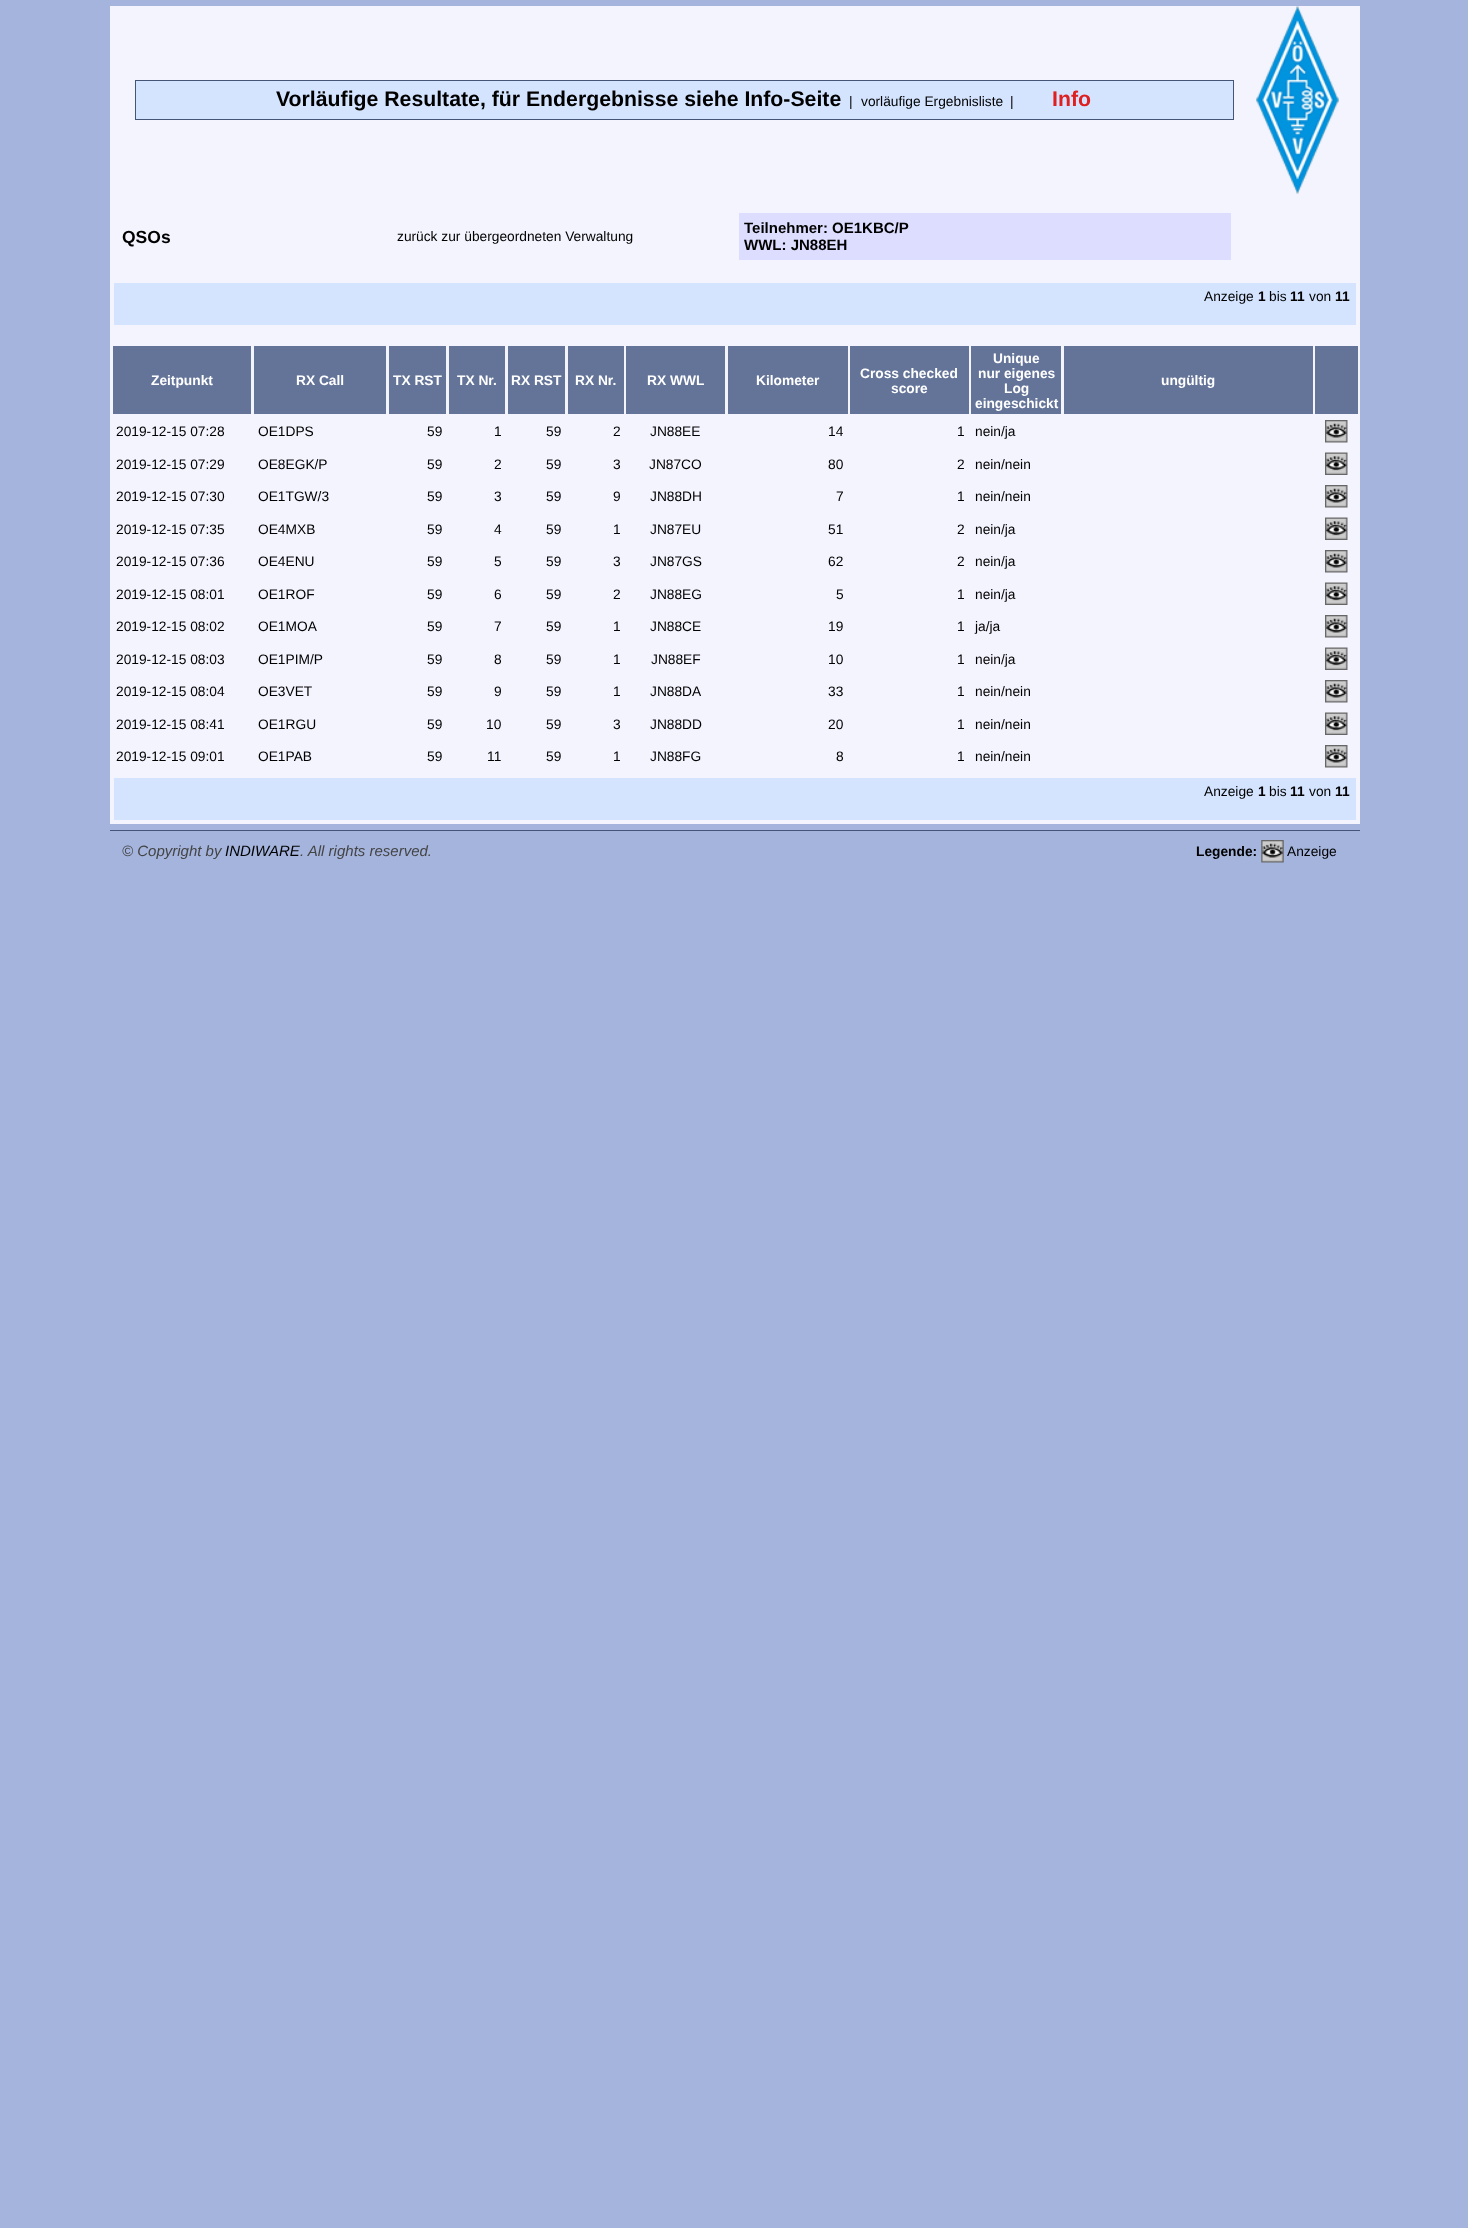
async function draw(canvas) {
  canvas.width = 1468;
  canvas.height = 2228;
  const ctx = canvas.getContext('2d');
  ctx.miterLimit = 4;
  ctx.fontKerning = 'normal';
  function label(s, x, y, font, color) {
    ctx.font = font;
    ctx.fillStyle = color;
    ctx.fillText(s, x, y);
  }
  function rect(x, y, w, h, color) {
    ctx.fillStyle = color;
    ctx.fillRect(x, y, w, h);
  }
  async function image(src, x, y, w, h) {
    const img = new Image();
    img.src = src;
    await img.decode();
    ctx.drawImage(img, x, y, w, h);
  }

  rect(0, 0, 1468, 2228, '#a4b4dd');
  rect(110, 6, 1250, 818, '#f4f4ff');
  rect(135, 80, 1099, 40, '#457');
  rect(136, 81, 1097, 38, '#d4e4ff');
  label('Vorläufige Resultate, für Endergebnisse siehe Info-Seite', 276, 106, 'bold 21.25px Liberation Sans', '#000');
  label('|', 849, 106, '13.75px Liberation Sans', '#000');
  label('vorläufige Ergebnisliste', 861, 106, '13.75px Liberation Sans', '#000');
  label('|', 1010, 106, '13.75px Liberation Sans', '#000');
  label('Info', 1052, 106, 'bold 21.25px Liberation Sans', '#de2020');
  await image('assets/img1.png', 1256, 6, 83, 188);
  label('QSOs', 122, 243, 'bold 17.5px Liberation Sans', '#000');
  label('zurück zur übergeordneten Verwaltung', 397, 241, '13.75px Liberation Sans', '#000');
  rect(739, 213, 492, 47, '#ddf');
  label('Teilnehmer: OE1KBC/P', 744, 233, 'bold 15px Liberation Sans', '#000');
  label('WWL: JN88EH', 744, 250, 'bold 15px Liberation Sans', '#000');
  rect(114, 283, 1242, 42, '#d4e4ff');
  label('Anzeige', 1204, 301, '13.75px Liberation Sans', '#000');
  label('1', 1258, 301, 'bold 13.75px Liberation Sans', '#000');
  label('bis', 1269, 301, '13.75px Liberation Sans', '#000');
  label('11', 1290, 301, 'bold 13.75px Liberation Sans', '#000');
  label('von', 1309, 301, '13.75px Liberation Sans', '#000');
  label('11', 1335, 301, 'bold 13.75px Liberation Sans', '#000');
  rect(113, 346, 138, 68, '#647499');
  label('Zeitpunkt', 151, 385, 'bold 13.75px Liberation Sans', '#fff');
  rect(254, 346, 132, 68, '#647499');
  label('RX Call', 296, 385, 'bold 13.75px Liberation Sans', '#fff');
  rect(389, 346, 57, 68, '#647499');
  label('TX RST', 393, 385, 'bold 13.75px Liberation Sans', '#fff');
  rect(449, 346, 56, 68, '#647499');
  label('TX Nr.', 457, 385, 'bold 13.75px Liberation Sans', '#fff');
  rect(508, 346, 57, 68, '#647499');
  label('RX RST', 511, 385, 'bold 13.75px Liberation Sans', '#fff');
  rect(568, 346, 56, 68, '#647499');
  label('RX Nr.', 575, 385, 'bold 13.75px Liberation Sans', '#fff');
  rect(626, 346, 99, 68, '#647499');
  label('RX WWL', 647, 385, 'bold 13.75px Liberation Sans', '#fff');
  rect(728, 346, 120, 68, '#647499');
  label('Kilometer', 756, 385, 'bold 13.75px Liberation Sans', '#fff');
  rect(850, 346, 119, 68, '#647499');
  label('Cross checked', 860, 378, 'bold 13.75px Liberation Sans', '#fff');
  label('score', 891, 393, 'bold 13.75px Liberation Sans', '#fff');
  rect(971, 346, 90, 68, '#647499');
  label('Unique', 993, 363, 'bold 13.75px Liberation Sans', '#fff');
  label('nur eigenes', 978, 378, 'bold 13.75px Liberation Sans', '#fff');
  label('Log', 1004, 393, 'bold 13.75px Liberation Sans', '#fff');
  label('eingeschickt', 975, 408, 'bold 13.75px Liberation Sans', '#fff');
  rect(1064, 346, 249, 68, '#647499');
  label('ungültig', 1161, 385, 'bold 13.75px Liberation Sans', '#fff');
  rect(1315, 346, 43, 68, '#647499');
  label('2019-12-15 07:28', 116, 436, '13.75px Liberation Sans', '#000');
  label('OE1DPS', 258, 436, '13.75px Liberation Sans', '#000');
  label('59', 427, 436, '13.75px Liberation Sans', '#000');
  label('1', 494, 436, '13.75px Liberation Sans', '#000');
  label('59', 546, 436, '13.75px Liberation Sans', '#000');
  label('2', 613, 436, '13.75px Liberation Sans', '#000');
  label('JN88EE', 650, 436, '13.75px Liberation Sans', '#000');
  label('14', 828, 436, '13.75px Liberation Sans', '#000');
  label('1', 957, 436, '13.75px Liberation Sans', '#000');
  label('nein/ja', 975, 436, '13.75px Liberation Sans', '#000');
  await image('assets/img2.png', 1325, 420, 23, 23);
  label('2019-12-15 07:29', 116, 469, '13.75px Liberation Sans', '#000');
  label('OE8EGK/P', 258, 469, '13.75px Liberation Sans', '#000');
  label('59', 427, 469, '13.75px Liberation Sans', '#000');
  label('2', 494, 469, '13.75px Liberation Sans', '#000');
  label('59', 546, 469, '13.75px Liberation Sans', '#000');
  label('3', 613, 469, '13.75px Liberation Sans', '#000');
  label('JN87CO', 649, 469, '13.75px Liberation Sans', '#000');
  label('80', 828, 469, '13.75px Liberation Sans', '#000');
  label('2', 957, 469, '13.75px Liberation Sans', '#000');
  label('nein/nein', 975, 469, '13.75px Liberation Sans', '#000');
  await image('assets/img3.png', 1325, 452, 23, 23);
  label('2019-12-15 07:30', 116, 501, '13.75px Liberation Sans', '#000');
  label('OE1TGW/3', 258, 501, '13.75px Liberation Sans', '#000');
  label('59', 427, 501, '13.75px Liberation Sans', '#000');
  label('3', 494, 501, '13.75px Liberation Sans', '#000');
  label('59', 546, 501, '13.75px Liberation Sans', '#000');
  label('9', 613, 501, '13.75px Liberation Sans', '#000');
  label('JN88DH', 650, 501, '13.75px Liberation Sans', '#000');
  label('7', 836, 501, '13.75px Liberation Sans', '#000');
  label('1', 957, 501, '13.75px Liberation Sans', '#000');
  label('nein/nein', 975, 501, '13.75px Liberation Sans', '#000');
  await image('assets/img2.png', 1325, 485, 23, 23);
  label('2019-12-15 07:35', 116, 534, '13.75px Liberation Sans', '#000');
  label('OE4MXB', 258, 534, '13.75px Liberation Sans', '#000');
  label('59', 427, 534, '13.75px Liberation Sans', '#000');
  label('4', 494, 534, '13.75px Liberation Sans', '#000');
  label('59', 546, 534, '13.75px Liberation Sans', '#000');
  label('1', 613, 534, '13.75px Liberation Sans', '#000');
  label('JN87EU', 650, 534, '13.75px Liberation Sans', '#000');
  label('51', 828, 534, '13.75px Liberation Sans', '#000');
  label('2', 957, 534, '13.75px Liberation Sans', '#000');
  label('nein/ja', 975, 534, '13.75px Liberation Sans', '#000');
  await image('assets/img3.png', 1325, 517, 23, 23);
  label('2019-12-15 07:36', 116, 566, '13.75px Liberation Sans', '#000');
  label('OE4ENU', 258, 566, '13.75px Liberation Sans', '#000');
  label('59', 427, 566, '13.75px Liberation Sans', '#000');
  label('5', 494, 566, '13.75px Liberation Sans', '#000');
  label('59', 546, 566, '13.75px Liberation Sans', '#000');
  label('3', 613, 566, '13.75px Liberation Sans', '#000');
  label('JN87GS', 650, 566, '13.75px Liberation Sans', '#000');
  label('62', 828, 566, '13.75px Liberation Sans', '#000');
  label('2', 957, 566, '13.75px Liberation Sans', '#000');
  label('nein/ja', 975, 566, '13.75px Liberation Sans', '#000');
  await image('assets/img2.png', 1325, 550, 23, 23);
  label('2019-12-15 08:01', 116, 599, '13.75px Liberation Sans', '#000');
  label('OE1ROF', 258, 599, '13.75px Liberation Sans', '#000');
  label('59', 427, 599, '13.75px Liberation Sans', '#000');
  label('6', 494, 599, '13.75px Liberation Sans', '#000');
  label('59', 546, 599, '13.75px Liberation Sans', '#000');
  label('2', 613, 599, '13.75px Liberation Sans', '#000');
  label('JN88EG', 650, 599, '13.75px Liberation Sans', '#000');
  label('5', 836, 599, '13.75px Liberation Sans', '#000');
  label('1', 957, 599, '13.75px Liberation Sans', '#000');
  label('nein/ja', 975, 599, '13.75px Liberation Sans', '#000');
  await image('assets/img4.png', 1325, 582, 23, 23);
  label('2019-12-15 08:02', 116, 631, '13.75px Liberation Sans', '#000');
  label('OE1MOA', 258, 631, '13.75px Liberation Sans', '#000');
  label('59', 427, 631, '13.75px Liberation Sans', '#000');
  label('7', 494, 631, '13.75px Liberation Sans', '#000');
  label('59', 546, 631, '13.75px Liberation Sans', '#000');
  label('1', 613, 631, '13.75px Liberation Sans', '#000');
  label('JN88CE', 650, 631, '13.75px Liberation Sans', '#000');
  label('19', 828, 631, '13.75px Liberation Sans', '#000');
  label('1', 957, 631, '13.75px Liberation Sans', '#000');
  label('ja/ja', 975, 631, '13.75px Liberation Sans', '#000');
  await image('assets/img2.png', 1325, 615, 23, 23);
  label('2019-12-15 08:03', 116, 664, '13.75px Liberation Sans', '#000');
  label('OE1PIM/P', 258, 664, '13.75px Liberation Sans', '#000');
  label('59', 427, 664, '13.75px Liberation Sans', '#000');
  label('8', 494, 664, '13.75px Liberation Sans', '#000');
  label('59', 546, 664, '13.75px Liberation Sans', '#000');
  label('1', 613, 664, '13.75px Liberation Sans', '#000');
  label('JN88EF', 651, 664, '13.75px Liberation Sans', '#000');
  label('10', 828, 664, '13.75px Liberation Sans', '#000');
  label('1', 957, 664, '13.75px Liberation Sans', '#000');
  label('nein/ja', 975, 664, '13.75px Liberation Sans', '#000');
  await image('assets/img3.png', 1325, 647, 23, 23);
  label('2019-12-15 08:04', 116, 696, '13.75px Liberation Sans', '#000');
  label('OE3VET', 258, 696, '13.75px Liberation Sans', '#000');
  label('59', 427, 696, '13.75px Liberation Sans', '#000');
  label('9', 494, 696, '13.75px Liberation Sans', '#000');
  label('59', 546, 696, '13.75px Liberation Sans', '#000');
  label('1', 613, 696, '13.75px Liberation Sans', '#000');
  label('JN88DA', 650, 696, '13.75px Liberation Sans', '#000');
  label('33', 828, 696, '13.75px Liberation Sans', '#000');
  label('1', 957, 696, '13.75px Liberation Sans', '#000');
  label('nein/nein', 975, 696, '13.75px Liberation Sans', '#000');
  await image('assets/img2.png', 1325, 680, 23, 23);
  label('2019-12-15 08:41', 116, 729, '13.75px Liberation Sans', '#000');
  label('OE1RGU', 258, 729, '13.75px Liberation Sans', '#000');
  label('59', 427, 729, '13.75px Liberation Sans', '#000');
  label('10', 486, 729, '13.75px Liberation Sans', '#000');
  label('59', 546, 729, '13.75px Liberation Sans', '#000');
  label('3', 613, 729, '13.75px Liberation Sans', '#000');
  label('JN88DD', 650, 729, '13.75px Liberation Sans', '#000');
  label('20', 828, 729, '13.75px Liberation Sans', '#000');
  label('1', 957, 729, '13.75px Liberation Sans', '#000');
  label('nein/nein', 975, 729, '13.75px Liberation Sans', '#000');
  await image('assets/img3.png', 1325, 712, 23, 23);
  label('2019-12-15 09:01', 116, 761, '13.75px Liberation Sans', '#000');
  label('OE1PAB', 258, 761, '13.75px Liberation Sans', '#000');
  label('59', 427, 761, '13.75px Liberation Sans', '#000');
  label('11', 487, 761, '13.75px Liberation Sans', '#000');
  label('59', 546, 761, '13.75px Liberation Sans', '#000');
  label('1', 613, 761, '13.75px Liberation Sans', '#000');
  label('JN88FG', 650, 761, '13.75px Liberation Sans', '#000');
  label('8', 836, 761, '13.75px Liberation Sans', '#000');
  label('1', 957, 761, '13.75px Liberation Sans', '#000');
  label('nein/nein', 975, 761, '13.75px Liberation Sans', '#000');
  await image('assets/img2.png', 1325, 745, 23, 23);
  rect(114, 778, 1242, 42, '#d4e4ff');
  label('Anzeige', 1204, 796, '13.75px Liberation Sans', '#000');
  label('1', 1258, 796, 'bold 13.75px Liberation Sans', '#000');
  label('bis', 1269, 796, '13.75px Liberation Sans', '#000');
  label('11', 1290, 796, 'bold 13.75px Liberation Sans', '#000');
  label('von', 1309, 796, '13.75px Liberation Sans', '#000');
  label('11', 1335, 796, 'bold 13.75px Liberation Sans', '#000');
  rect(110, 830, 1250, 1, '#457');
  label('© Copyright by', 122, 856, 'italic 15px Liberation Sans', '#444');
  label('INDIWARE', 225, 856, 'italic 15px Liberation Sans', '#000');
  label('. All rights reserved.', 300, 856, 'italic 15px Liberation Sans', '#444');
  label('Legende:', 1196, 856, 'bold 13.75px Liberation Sans', '#000');
  await image('assets/img5.png', 1261, 840, 23, 23);
  label('Anzeige', 1287, 856, '13.75px Liberation Sans', '#000');
}

draw(document.querySelector('canvas'));
